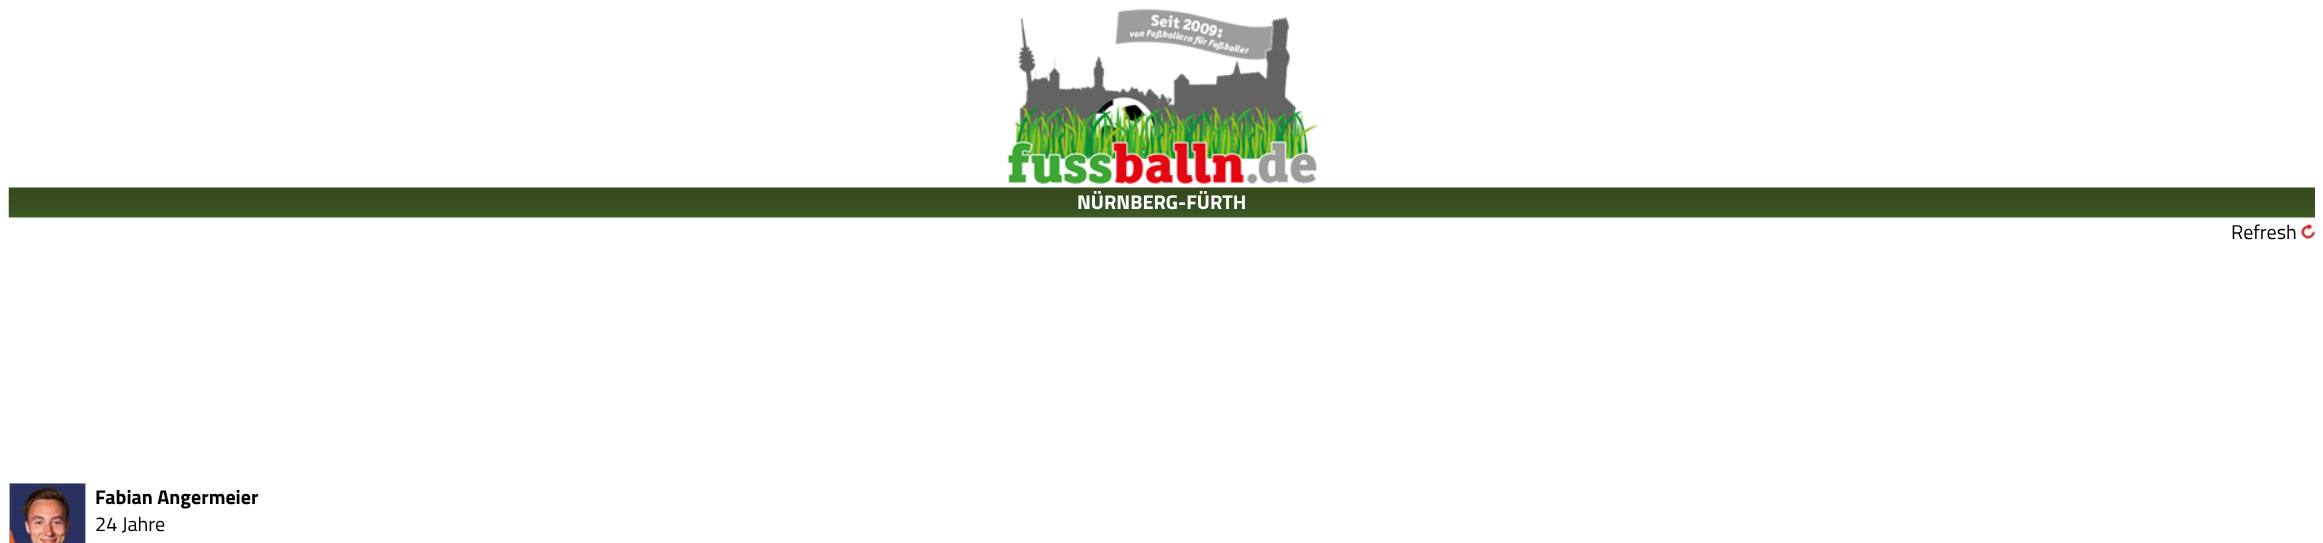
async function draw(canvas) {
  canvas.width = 2323;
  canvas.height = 543;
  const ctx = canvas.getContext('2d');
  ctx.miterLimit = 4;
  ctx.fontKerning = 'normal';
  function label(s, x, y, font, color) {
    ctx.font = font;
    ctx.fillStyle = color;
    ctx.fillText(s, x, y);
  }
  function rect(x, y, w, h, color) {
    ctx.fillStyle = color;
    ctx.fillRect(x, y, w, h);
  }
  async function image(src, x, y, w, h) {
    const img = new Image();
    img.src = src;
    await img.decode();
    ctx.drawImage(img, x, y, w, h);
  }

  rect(0, 0, 2323, 543, '#fff');
  await image('assets/img1.png', 1007, 8, 312, 176);
  await image('assets/img2.png', 8, 187, 2307, 31);
  label('NÜRNBERG-FÜRTH', 1077, 209, 'bold 20px Titillium Web', '#fff');
  label('Refresh', 2231, 239, '20px Titillium Web', '#000');
  await image('assets/img3.png', 2301, 223, 14, 16);
  ctx.strokeStyle = '#a9a9a9';
  ctx.strokeRect(9.5, 483.5, 76, 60);
  await image('assets/img4.png', 10, 483, 75, 60);
  label('Fabian Angermeier', 95, 504, 'bold 20px Titillium Web', '#000');
  label('24 Jahre', 95, 531, '20px Titillium Web', '#000');
}

draw(document.querySelector('canvas'));
